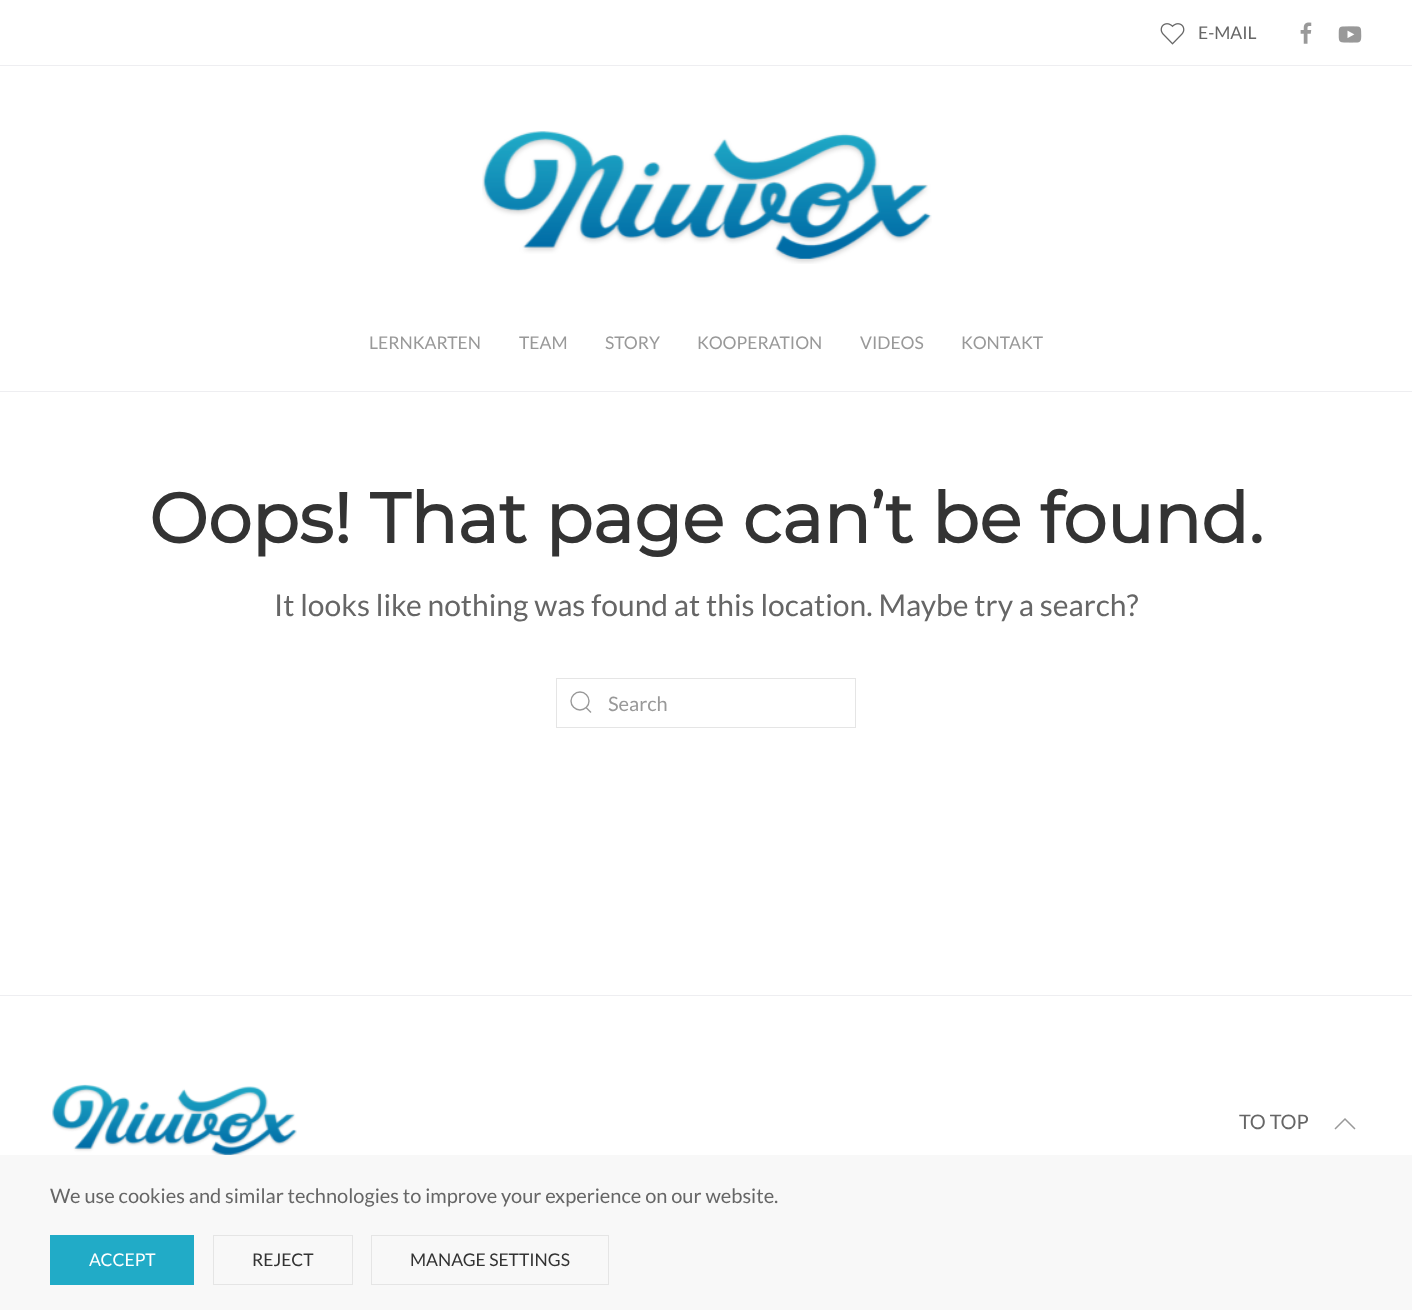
async function draw(canvas) {
  canvas.width = 1412;
  canvas.height = 1310;
  const ctx = canvas.getContext('2d');
  ctx.miterLimit = 4;
  ctx.fontKerning = 'normal';
  function label(s, x, y, font, color) {
    ctx.font = font;
    ctx.fillStyle = color;
    ctx.fillText(s, x, y);
  }
  function rect(x, y, w, h, color) {
    ctx.fillStyle = color;
    ctx.fillRect(x, y, w, h);
  }
  async function image(src, x, y, w, h) {
    const img = new Image();
    img.src = src;
    await img.decode();
    ctx.drawImage(img, x, y, w, h);
  }
  let path;

  rect(0, 0, 1412, 1310, '#fff');
  rect(0, 65, 1412, 1, '#eeeef1');
  await image('assets/img1.png', 1160, 23, 25, 22);
  label('E-MAIL', 1198, 39, '17.5px Lato', '#666');
  await image('assets/img2.png', 1300, 22, 12, 22);
  await image('assets/img3.png', 1338, 26, 24, 17);
  await image('assets/img4.png', 482, 131, 450, 133);
  label('LERNKARTEN', 369, 349, '17.5px Lato', '#999');
  label('TEAM', 519, 349, '17.5px Lato', '#999');
  label('STORY', 605, 349, '17.5px Lato', '#999');
  label('KOOPERATION', 697, 349, '17.5px Lato', '#999');
  label('VIDEOS', 860, 349, '17.5px Lato', '#999');
  label('KONTAKT', 961, 349, '17.5px Lato', '#999');
  rect(0, 391, 1412, 1, '#eeeef1');
  label('Oops! That page can’t be found.', 149, 543, 'bold 70px Montserrat', '#333');
  label('It looks like nothing was found at this location. Maybe try a search?', 274, 616, '30px Lato', '#666');
  ctx.strokeStyle = '#e5e5e5';
  ctx.strokeRect(556.5, 678.5, 299, 49);
  ctx.beginPath();
  ctx.arc(580, 701, 9, 0, 2 * Math.PI);
  ctx.strokeStyle = '#999';
  ctx.lineWidth = 1.4;
  ctx.stroke();
  path = new Path2D('M586 707.5L591 712.5Z');
  ctx.stroke(path);
  label('Search', 608, 711, '20px Lato', '#999');
  rect(0, 995, 1412, 1, '#eeeef1');
  await image('assets/img5.png', 52, 1084, 245, 71);
  label('TO TOP', 1239, 1129, '20px Lato', '#666');
  path = new Path2D('M1335 1129L1345 1119L1355 1129');
  ctx.lineWidth = 1.5;
  ctx.stroke(path);
  rect(0, 1155, 1412, 155, '#f8f8f8');
  label('We use cookies and similar technologies to improve your experience on our website.', 50, 1203, '20px Lato', '#666');
  rect(50, 1235, 144, 50, '#21abc7');
  label('ACCEPT', 89, 1266, '17.5px Lato', '#fff');
  ctx.strokeStyle = '#e5e5e5';
  ctx.lineWidth = 1;
  ctx.strokeRect(213.5, 1235.5, 139, 49);
  label('REJECT', 252, 1266, '17.5px Lato', '#333');
  ctx.strokeRect(371.5, 1235.5, 237, 49);
  label('MANAGE SETTINGS', 410, 1266, '17.5px Lato', '#333');
}

draw(document.querySelector('canvas'));
